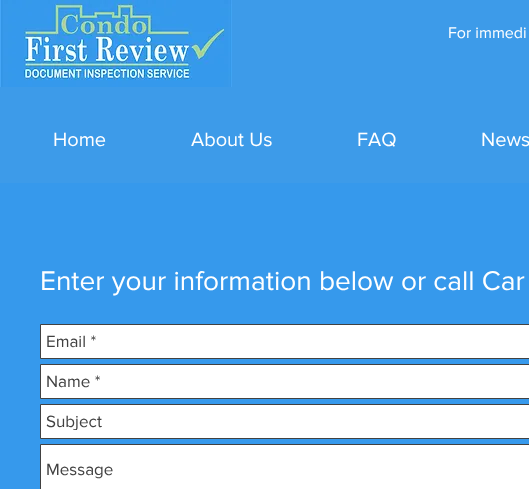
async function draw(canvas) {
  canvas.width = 529;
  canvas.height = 489;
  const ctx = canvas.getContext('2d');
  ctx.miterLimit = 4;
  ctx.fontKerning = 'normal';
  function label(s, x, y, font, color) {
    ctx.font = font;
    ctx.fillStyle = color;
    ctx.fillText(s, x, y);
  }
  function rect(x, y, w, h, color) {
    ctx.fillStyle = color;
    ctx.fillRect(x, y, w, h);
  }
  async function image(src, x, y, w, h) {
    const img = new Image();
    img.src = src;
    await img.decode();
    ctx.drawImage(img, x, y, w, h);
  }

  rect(0, 0, 529, 489, '#3699ec');
  rect(0, 0, 529, 183, '#3d9be9');
  await image('assets/img1.png', 0, 0, 232, 87);
  label('For immedi', 448, 38, '16px "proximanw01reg"', '#fff');
  label('Home', 53, 146, '20px "proximanw01reg"', '#fff');
  label('About Us', 191, 146, '20px "proximanw01reg"', '#fff');
  label('FAQ', 357, 146, '20px "proximanw01reg"', '#fff');
  label('News', 481, 146, '20px "proximanw01reg"', '#fff');
  label('Enter your information below or call Car', 40, 290, '28px "proximanw01reg"', '#fff');
  ctx.beginPath();
  ctx.rect(40.5, 324.5, 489, 34);
  ctx.fill();
  ctx.strokeStyle = '#414141';
  ctx.stroke();
  label('Email *', 46, 347, '17px "proximanw01reg"', '#414141');
  ctx.fillStyle = '#fff';
  ctx.beginPath();
  ctx.rect(40.5, 364.5, 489, 34);
  ctx.fill();
  ctx.stroke();
  label('Name *', 46, 387, '17px "proximanw01reg"', '#414141');
  ctx.fillStyle = '#fff';
  ctx.beginPath();
  ctx.rect(40.5, 404.5, 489, 34);
  ctx.fill();
  ctx.stroke();
  ctx.save();
  ctx.beginPath();
  ctx.rect(46, 412, 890, 18);
  ctx.clip();
  label('Subject', 46, 427, '17px "proximanw01reg"', '#414141');
  ctx.restore();
  ctx.beginPath();
  ctx.rect(40.5, 444.5, 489, 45);
  ctx.fill();
  ctx.stroke();
  label('Message', 46, 475, '17px "proximanw01reg"', '#414141');
}

draw(document.querySelector('canvas'));
